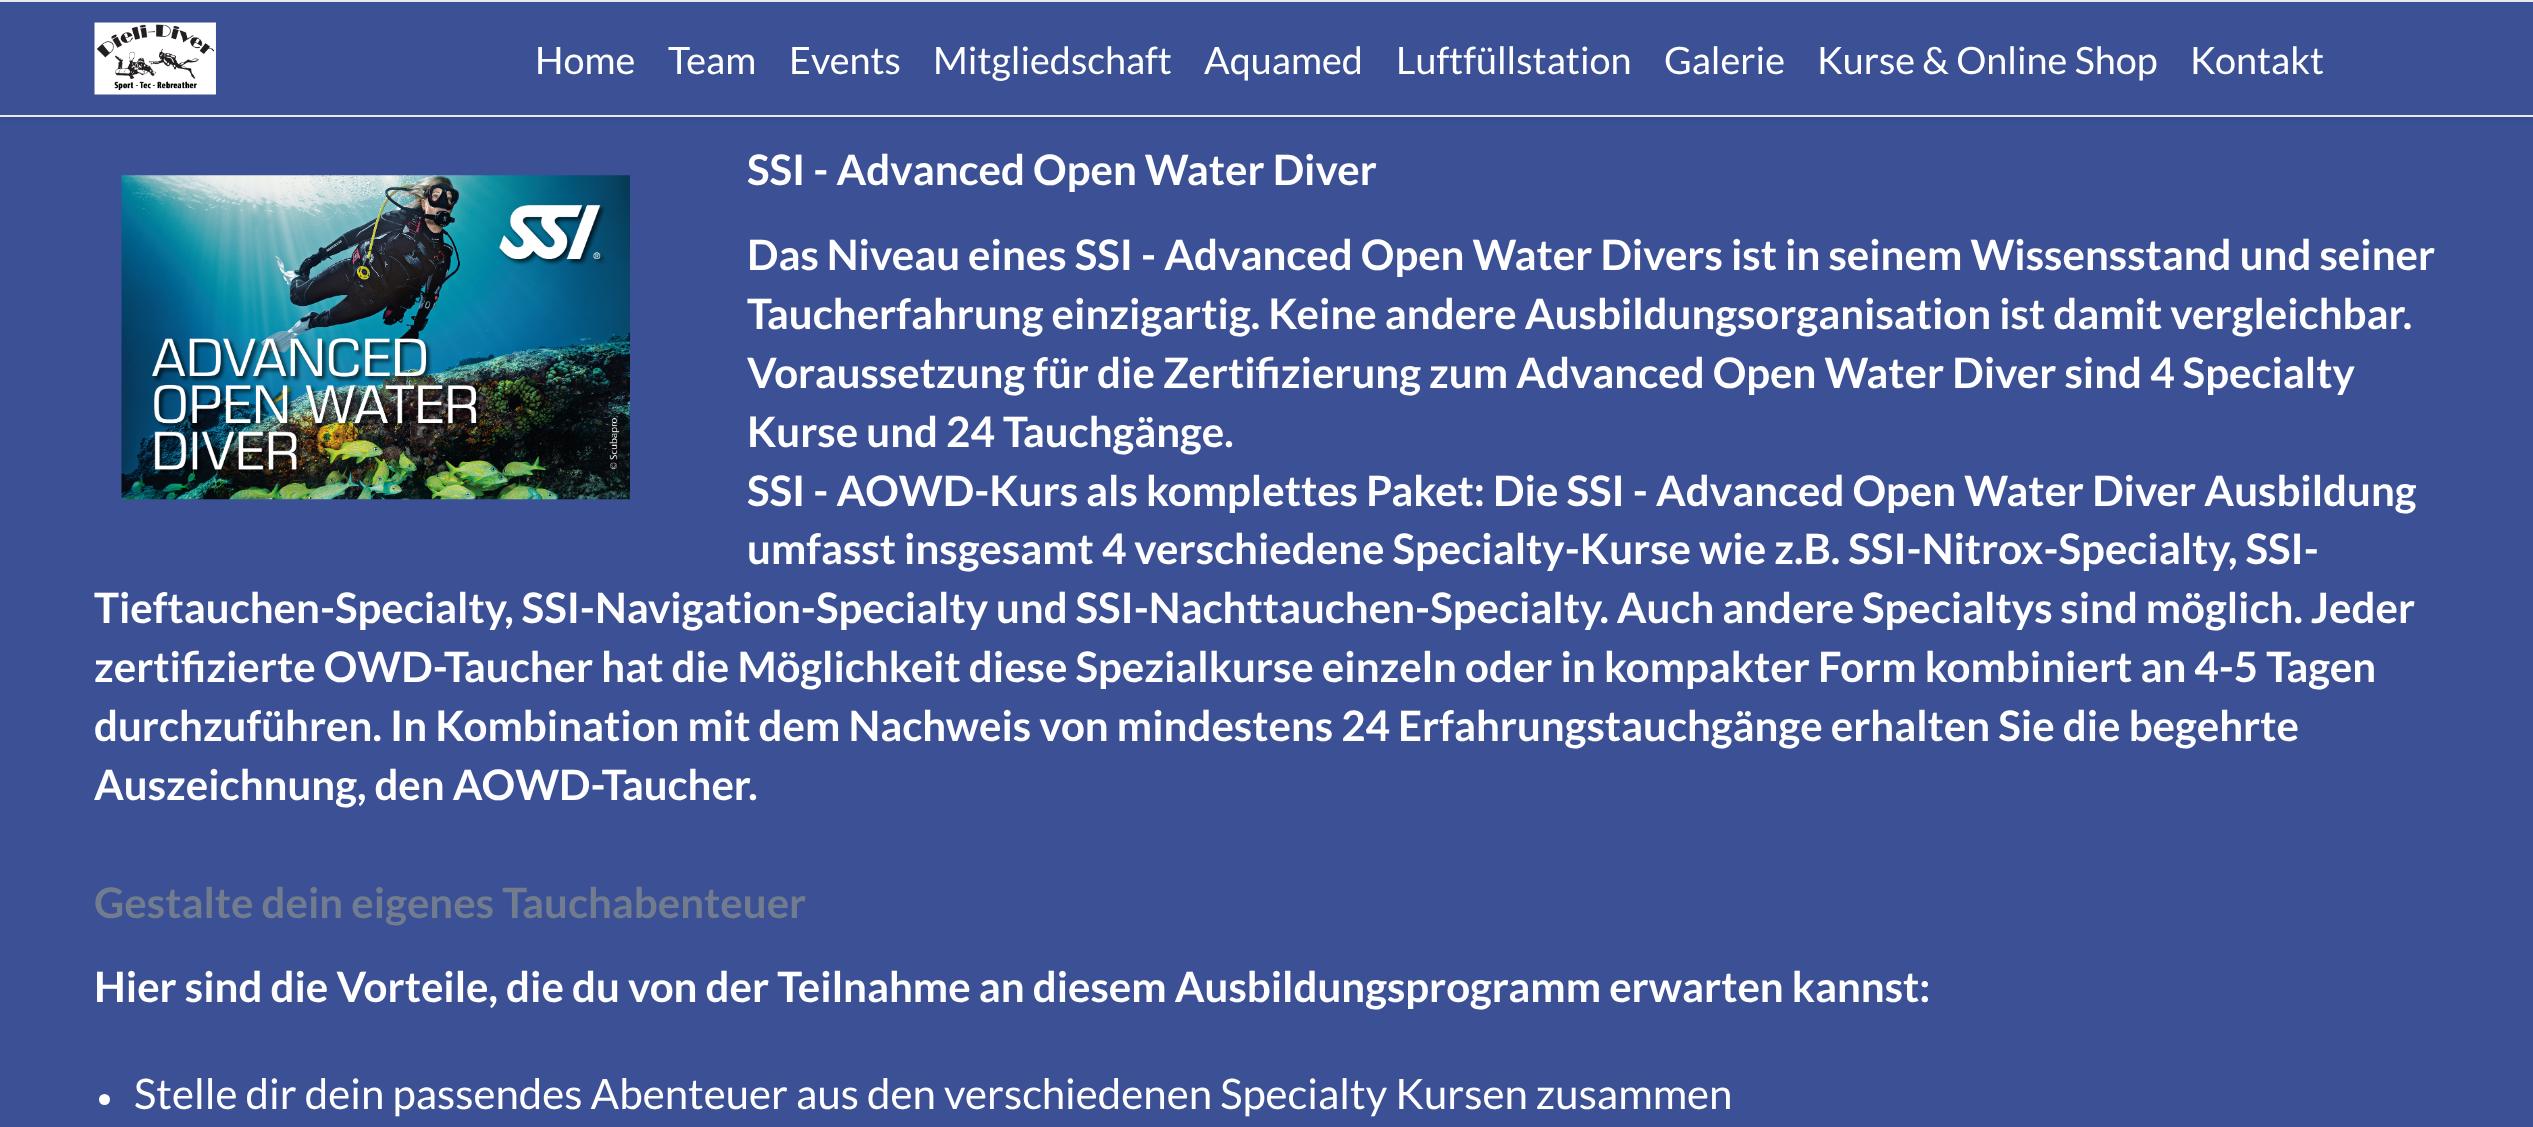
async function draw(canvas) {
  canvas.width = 2533;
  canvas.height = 1127;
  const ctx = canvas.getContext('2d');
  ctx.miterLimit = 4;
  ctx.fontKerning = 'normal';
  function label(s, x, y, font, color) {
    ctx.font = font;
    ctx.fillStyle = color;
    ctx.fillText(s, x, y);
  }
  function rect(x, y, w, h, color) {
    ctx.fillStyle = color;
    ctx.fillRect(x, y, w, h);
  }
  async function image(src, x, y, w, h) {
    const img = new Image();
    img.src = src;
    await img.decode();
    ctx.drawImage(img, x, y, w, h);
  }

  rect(0, 0, 2533, 1127, '#3c5096');
  rect(0, 0, 2533, 2, '#e5e8ee');
  ctx.fillStyle = '#0000001a';
  ctx.filter = 'blur(2px)';
  ctx.beginPath();
  ctx.rect(0, 5, 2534, 114);
  ctx.fill();
  ctx.filter = 'none';
  rect(0, 3, 2533, 112, '#3c5096');
  rect(0, 115, 2533, 2, '#e5e8ee');
  await image('assets/img1.png', 94, 22, 122, 73);
  label('Home', 535, 74, '37.75px Lato', '#fff');
  label('Team', 668, 74, '37.75px Lato', '#fff');
  label('Events', 789, 74, '37.75px Lato', '#fff');
  label('Mitgliedschaft', 933, 74, '37.75px Lato', '#fff');
  label('Aquamed', 1204, 74, '37.75px Lato', '#fff');
  label('Luftfüllstation', 1396, 74, '37.75px Lato', '#fff');
  label('Galerie', 1664, 74, '37.75px Lato', '#fff');
  label('Kurse & Online Shop', 1817, 74, '37.75px Lato', '#fff');
  label('Kontakt', 2190, 74, '37.75px Lato', '#fff');
  await image('assets/img2.png', 121, 175, 509, 325);
  label('SSI - Advanced Open Water Diver', 747, 185, 'bold 42px Lato', '#fff');
  label('Das Niveau eines SSI - Advanced Open Water Divers ist in seinem Wissensstand und seiner', 747, 270, 'bold 42px Lato', '#fff');
  label('Taucherfahrung einzigartig. Keine andere Ausbildungsorganisation ist damit vergleichbar.', 747, 329, 'bold 42px Lato', '#fff');
  label('Voraussetzung für die Zertifizierung zum Advanced Open Water Diver sind 4 Specialty', 747, 388, 'bold 42px Lato', '#fff');
  label('Kurse und 24 Tauchgänge.', 747, 447, 'bold 42px Lato', '#fff');
  label('SSI - AOWD-Kurs als komplettes Paket: Die SSI - Advanced Open Water Diver Ausbildung', 747, 506, 'bold 42px Lato', '#fff');
  label('umfasst insgesamt 4 verschiedene Specialty-Kurse wie z.B. SSI-Nitrox-Specialty, SSI-', 747, 564, 'bold 42px Lato', '#fff');
  ctx.wordSpacing = '-0.25px';
  label('Tieftauchen-Specialty, SSI-Navigation-Specialty und SSI-Nachttauchen-Specialty. Auch andere Specialtys sind möglich. Jeder', 94, 623, 'bold 42px Lato', '#fff');
  ctx.wordSpacing = '0px';
  label('zertifizierte OWD-Taucher hat die Möglichkeit diese Spezialkurse einzeln oder in kompakter Form kombiniert an 4-5 Tagen', 94, 682, 'bold 42px Lato', '#fff');
  label('durchzuführen. In Kombination mit dem Nachweis von mindestens 24 Erfahrungstauchgänge erhalten Sie die begehrte', 94, 741, 'bold 42px Lato', '#fff');
  label('Auszeichnung, den AOWD-Taucher.', 94, 800, 'bold 42px Lato', '#fff');
  label('Gestalte dein eigenes Tauchabenteuer', 94, 918, 'bold 42px Lato', '#717c8e');
  label('Hier sind die Vorteile, die du von der Teilnahme an diesem Ausbildungsprogramm erwarten kannst:', 94, 1002, 'bold 42px Lato', '#fff');
  ctx.beginPath();
  ctx.arc(104.5, 1099.5, 5.5, 0, 2 * Math.PI);
  ctx.fill();
  label('Stelle dir dein passendes Abenteuer aus den verschiedenen Specialty Kursen zusammen', 134, 1109, '42px Lato', '#fff');
}

draw(document.querySelector('canvas'));
